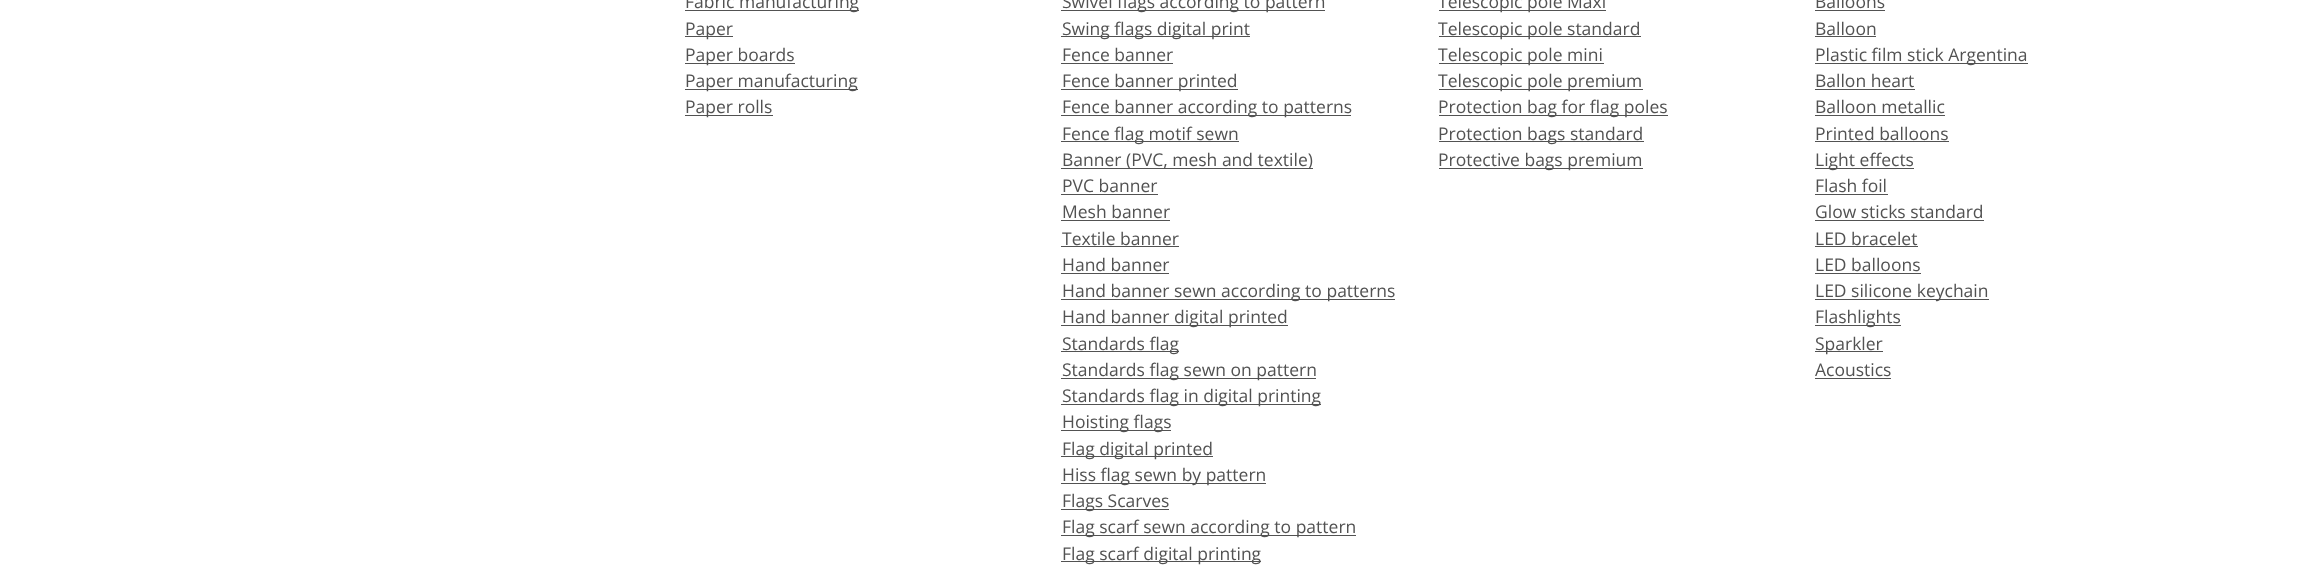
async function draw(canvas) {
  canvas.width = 2321;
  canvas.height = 573;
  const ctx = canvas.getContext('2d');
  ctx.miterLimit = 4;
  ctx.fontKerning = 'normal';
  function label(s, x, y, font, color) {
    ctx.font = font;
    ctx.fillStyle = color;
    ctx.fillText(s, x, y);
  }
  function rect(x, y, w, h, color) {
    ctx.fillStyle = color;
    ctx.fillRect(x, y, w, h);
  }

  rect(0, 0, 2321, 573, '#fff');
  rect(685, 10, 174, 1, '#525252');
  label('Fabric manufacturing', 685, 8, '17.5px Open Sans', '#525252');
  rect(685, 36, 48, 1, '#525252');
  label('Paper', 685, 35, '17.5px Open Sans', '#525252');
  rect(685, 63, 110, 1, '#525252');
  label('Paper boards', 685, 61, '17.5px Open Sans', '#525252');
  rect(685, 89, 173, 1, '#525252');
  label('Paper manufacturing', 685, 87, '17.5px Open Sans', '#525252');
  rect(685, 115, 88, 1, '#525252');
  label('Paper rolls', 685, 113, '17.5px Open Sans', '#525252');
  rect(1061, 10, 264, 1, '#525252');
  label('Swivel flags according to pattern', 1062, 8, '17.5px Open Sans', '#525252');
  rect(1061, 36, 189, 1, '#525252');
  label('Swing flags digital print', 1062, 35, '17.5px Open Sans', '#525252');
  label('Fence banner', 1062, 61, '17.5px Open Sans', '#525252');
  rect(1061, 63, 112, 1, '#525252');
  rect(1061, 89, 177, 1, '#525252');
  label('Fence banner printed', 1062, 87, '17.5px Open Sans', '#525252');
  rect(1061, 115, 290, 1, '#525252');
  label('Fence banner according to patterns', 1062, 113, '17.5px Open Sans', '#525252');
  rect(1061, 141, 178, 1, '#525252');
  label('Fence flag motif sewn', 1062, 140, '17.5px Open Sans', '#525252');
  rect(1061, 168, 252, 1, '#525252');
  label('Banner (PVC, mesh and textile)', 1062, 166, '17.5px Open Sans', '#525252');
  label('PVC banner', 1062, 192, '17.5px Open Sans', '#525252');
  rect(1061, 194, 97, 1, '#525252');
  label('Mesh banner', 1062, 218, '17.5px Open Sans', '#525252');
  rect(1061, 220, 109, 1, '#525252');
  label('Textile banner', 1062, 245, '17.5px Open Sans', '#525252');
  rect(1061, 246, 118, 1, '#525252');
  label('Hand banner', 1062, 271, '17.5px Open Sans', '#525252');
  rect(1061, 273, 108, 1, '#525252');
  rect(1061, 299, 334, 1, '#525252');
  label('Hand banner sewn according to patterns', 1062, 297, '17.5px Open Sans', '#525252');
  rect(1061, 325, 227, 1, '#525252');
  label('Hand banner digital printed', 1062, 323, '17.5px Open Sans', '#525252');
  rect(1061, 351, 118, 1, '#525252');
  label('Standards flag', 1062, 350, '17.5px Open Sans', '#525252');
  rect(1061, 378, 255, 1, '#525252');
  label('Standards flag sewn on pattern', 1062, 376, '17.5px Open Sans', '#525252');
  rect(1061, 404, 260, 1, '#525252');
  label('Standards flag in digital printing', 1062, 402, '17.5px Open Sans', '#525252');
  rect(1061, 430, 110, 1, '#525252');
  label('Hoisting flags', 1062, 428, '17.5px Open Sans', '#525252');
  rect(1061, 456, 152, 1, '#525252');
  label('Flag digital printed', 1062, 455, '17.5px Open Sans', '#525252');
  rect(1061, 483, 205, 1, '#525252');
  label('Hiss flag sewn by pattern', 1062, 481, '17.5px Open Sans', '#525252');
  rect(1061, 509, 108, 1, '#525252');
  label('Flags Scarves', 1062, 507, '17.5px Open Sans', '#525252');
  rect(1061, 535, 295, 1, '#525252');
  label('Flag scarf sewn according to pattern', 1062, 533, '17.5px Open Sans', '#525252');
  rect(1061, 561, 200, 1, '#525252');
  label('Flag scarf digital printing', 1062, 560, '17.5px Open Sans', '#525252');
  rect(1439, 10, 167, 1, '#525252');
  label('Telescopic pole Maxi', 1438, 8, '17.5px Open Sans', '#525252');
  rect(1439, 36, 202, 1, '#525252');
  label('Telescopic pole standard', 1438, 35, '17.5px Open Sans', '#525252');
  rect(1439, 63, 165, 1, '#525252');
  label('Telescopic pole mini', 1438, 61, '17.5px Open Sans', '#525252');
  rect(1439, 89, 204, 1, '#525252');
  label('Telescopic pole premium', 1438, 87, '17.5px Open Sans', '#525252');
  rect(1439, 115, 229, 1, '#525252');
  label('Protection bag for flag poles', 1438, 113, '17.5px Open Sans', '#525252');
  rect(1439, 141, 205, 1, '#525252');
  label('Protection bags standard', 1438, 140, '17.5px Open Sans', '#525252');
  rect(1439, 168, 204, 1, '#525252');
  label('Protective bags premium', 1438, 166, '17.5px Open Sans', '#525252');
  label('Balloons', 1815, 8, '17.5px Open Sans', '#525252');
  rect(1815, 10, 70, 1, '#525252');
  label('Balloon', 1815, 35, '17.5px Open Sans', '#525252');
  rect(1815, 36, 61, 1, '#525252');
  rect(1815, 63, 213, 1, '#525252');
  label('Plastic film stick Argentina', 1815, 61, '17.5px Open Sans', '#525252');
  label('Ballon heart', 1815, 87, '17.5px Open Sans', '#525252');
  rect(1815, 89, 100, 1, '#525252');
  label('Balloon metallic', 1815, 113, '17.5px Open Sans', '#525252');
  rect(1815, 115, 130, 1, '#525252');
  label('Printed balloons', 1815, 140, '17.5px Open Sans', '#525252');
  rect(1815, 141, 134, 1, '#525252');
  rect(1815, 168, 99, 1, '#525252');
  label('Light effects', 1815, 166, '17.5px Open Sans', '#525252');
  label('Flash foil', 1815, 192, '17.5px Open Sans', '#525252');
  rect(1815, 194, 73, 1, '#525252');
  label('Glow sticks standard', 1815, 218, '17.5px Open Sans', '#525252');
  rect(1815, 220, 169, 1, '#525252');
  label('LED bracelet', 1815, 245, '17.5px Open Sans', '#525252');
  rect(1815, 246, 103, 1, '#525252');
  label('LED balloons', 1815, 271, '17.5px Open Sans', '#525252');
  rect(1815, 273, 106, 1, '#525252');
  rect(1815, 299, 174, 1, '#525252');
  label('LED silicone keychain', 1815, 297, '17.5px Open Sans', '#525252');
  rect(1815, 325, 86, 1, '#525252');
  label('Flashlights', 1815, 323, '17.5px Open Sans', '#525252');
  rect(1815, 351, 68, 1, '#525252');
  label('Sparkler', 1815, 350, '17.5px Open Sans', '#525252');
  label('Acoustics', 1815, 376, '17.5px Open Sans', '#525252');
  rect(1815, 378, 76, 1, '#525252');
}

draw(document.querySelector('canvas'));
